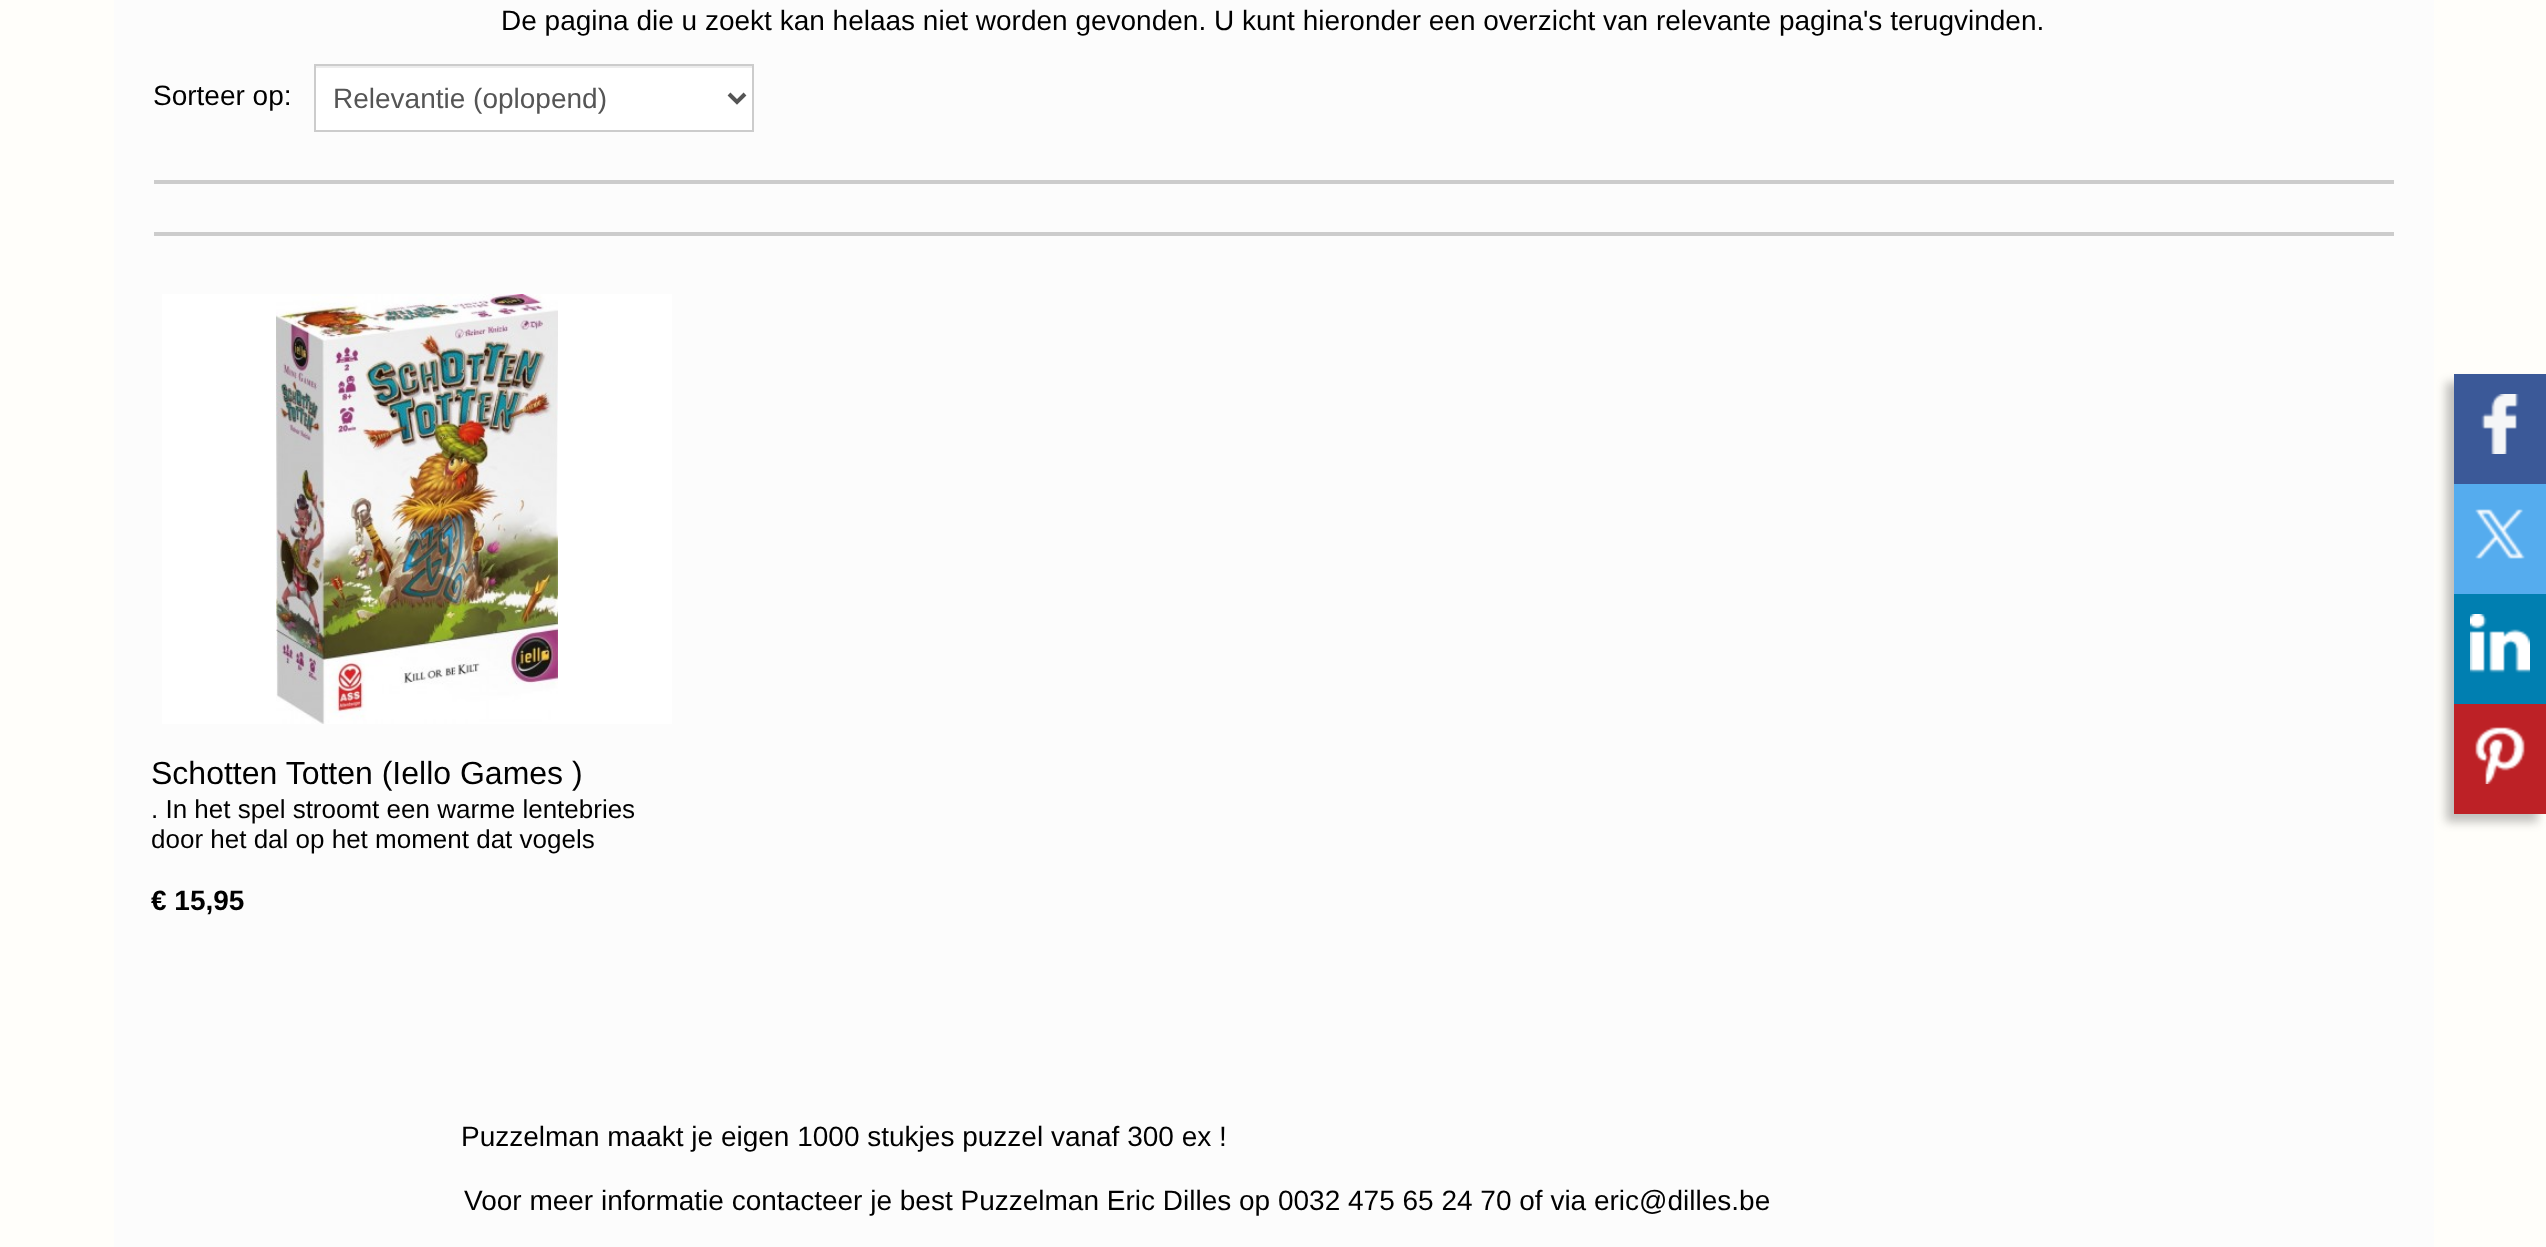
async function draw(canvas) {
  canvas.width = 2546;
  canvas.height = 1247;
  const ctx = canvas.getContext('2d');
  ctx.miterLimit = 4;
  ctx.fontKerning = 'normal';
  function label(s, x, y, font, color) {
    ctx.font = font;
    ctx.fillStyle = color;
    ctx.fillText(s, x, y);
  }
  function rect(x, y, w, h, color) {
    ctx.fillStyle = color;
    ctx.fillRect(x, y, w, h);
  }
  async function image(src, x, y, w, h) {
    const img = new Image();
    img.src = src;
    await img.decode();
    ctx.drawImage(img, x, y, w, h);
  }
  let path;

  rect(0, 0, 2546, 1247, '#fffefa');
  rect(114, 0, 2320, 1247, '#fcfcfc');
  label('De pagina die u zoekt kan helaas niet worden gevonden. U kunt hieronder een overzicht van relevante pagina\'s terugvinden.', 501, 30, '28px Liberation Sans', '#000');
  label('Sorteer op:', 153, 105, '28px Liberation Sans', '#000');
  rect(316, 68, 436, 62, '#fff');
  rect(316, 66, 436, 2, '#ececec');
  ctx.strokeStyle = '#ccc';
  ctx.lineWidth = 2;
  ctx.strokeRect(315, 65, 438, 66);
  path = new Path2D('M729 94L737 102L745 94');
  ctx.strokeStyle = '#555';
  ctx.lineWidth = 4;
  ctx.stroke(path);
  label('Relevantie (oplopend)', 333, 108, '28px Liberation Sans', '#555');
  rect(154, 180, 2240, 4, '#ccc');
  rect(154, 232, 2240, 4, '#ccc');
  rect(162, 294, 510, 430, '#fff');
  await image('assets/img1.png', 276, 294, 282, 430);
  label('Schotten Totten (Iello Games )', 151, 784, '32px Liberation Sans', '#000');
  label('. In het spel stroomt een warme lentebries', 151, 818, '26px Liberation Sans', '#000');
  label('door het dal op het moment dat vogels', 151, 848, '26px Liberation Sans', '#000');
  label('€ 15,95', 151, 910, 'bold 28px Liberation Sans', '#000');
  label('Puzzelman maakt je eigen 1000 stukjes puzzel vanaf 300 ex !', 461, 1146, '28px Liberation Sans', '#000');
  label('Voor meer informatie contacteer je best Puzzelman Eric Dilles op 0032 475 65 24 70 of via eric@dilles.be', 464, 1210, '28px Liberation Sans', '#000');
  ctx.fillStyle = '#3232324d';
  ctx.filter = 'blur(5px)';
  ctx.beginPath();
  ctx.rect(2446, 382, 92, 440);
  ctx.fill();
  ctx.filter = 'none';
  rect(2454, 374, 92, 110, '#3b5998');
  await image('assets/img2.png', 2481, 394, 38, 60);
  rect(2454, 484, 92, 110, '#55acee');
  await image('assets/img3.png', 2475, 509, 50, 50);
  rect(2454, 594, 92, 110, '#007fb1');
  await image('assets/img4.png', 2470, 614, 60, 59);
  rect(2454, 704, 92, 110, '#bd2126');
  await image('assets/img5.png', 2475, 727, 50, 57);
}

draw(document.querySelector('canvas'));
